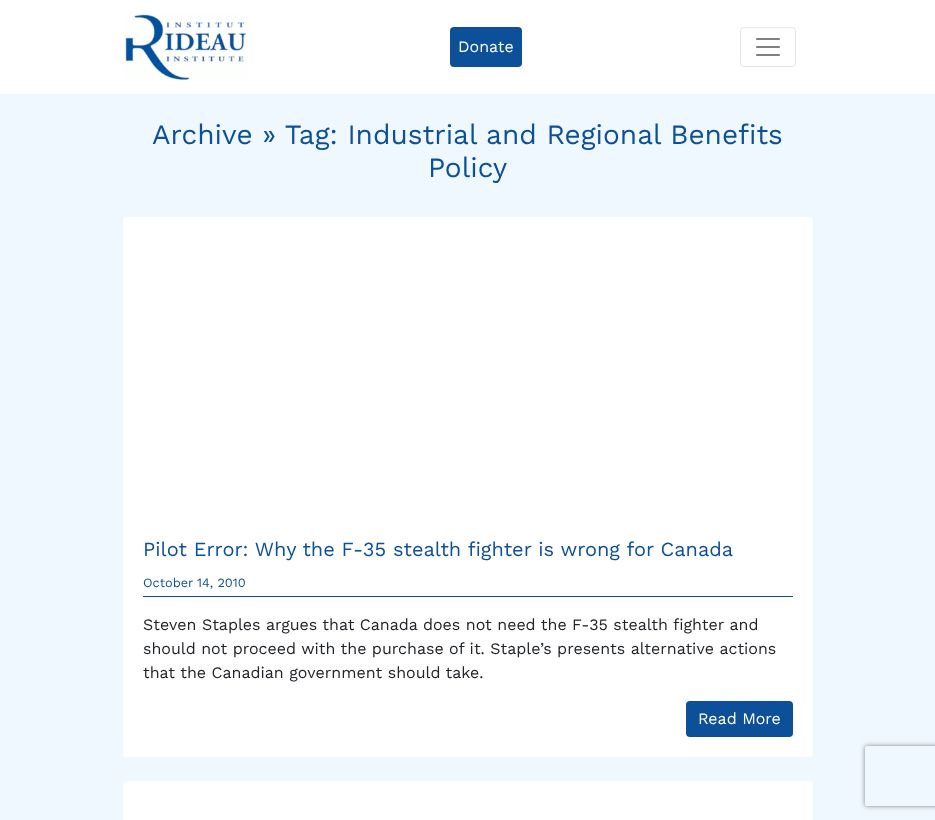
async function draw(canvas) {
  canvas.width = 935;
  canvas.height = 820;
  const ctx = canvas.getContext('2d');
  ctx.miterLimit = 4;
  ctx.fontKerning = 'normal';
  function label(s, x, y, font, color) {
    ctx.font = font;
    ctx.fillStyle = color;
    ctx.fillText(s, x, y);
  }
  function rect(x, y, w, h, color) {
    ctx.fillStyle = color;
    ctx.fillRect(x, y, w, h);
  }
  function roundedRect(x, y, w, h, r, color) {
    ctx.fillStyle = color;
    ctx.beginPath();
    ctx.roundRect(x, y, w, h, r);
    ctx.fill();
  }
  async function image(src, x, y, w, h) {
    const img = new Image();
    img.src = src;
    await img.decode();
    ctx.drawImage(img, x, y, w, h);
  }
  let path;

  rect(0, 0, 935, 820, '#fff');
  await image('assets/img1.png', 125, 14, 122, 67);
  roundedRect(450, 27, 72, 40, 4, '#0c509a');
  label('Donate', 458, 52, '16px Work Sans', '#fff');
  ctx.beginPath();
  ctx.roundRect(740.5, 27.5, 55, 39, 3.5);
  ctx.strokeStyle = '#e6e6e6';
  ctx.stroke();
  await image('assets/img2.png', 756, 38, 24, 18);
  rect(0, 94, 935, 726, '#f0f8ff');
  label('Archive » Tag: Industrial and Regional Benefits', 152, 144, '28px Work Sans', '#0c509a');
  label('Policy', 428, 177, '28px Work Sans', '#0c509a');
  roundedRect(123, 217, 690, 540, 4, '#fff');
  label('Pilot Error: Why the F-35 stealth fighter is wrong for Canada', 143, 556, '20px Work Sans', '#0c509a');
  rect(143, 596, 650, 1, '#0c509a');
  label('October 14, 2010', 143, 587, '12.75px Work Sans', '#0c509a');
  label('Steven Staples argues that Canada does not need the F-35 stealth fighter and', 143, 630, '16px Work Sans', '#212529');
  label('should not proceed with the purchase of it. Staple’s presents alternative actions', 143, 654, '16px Work Sans', '#212529');
  label('that the Canadian government should take.', 143, 678, '16px Work Sans', '#212529');
  roundedRect(686, 701, 107, 36, 4, '#0c509a');
  label('Read More', 698, 724, '16px Work Sans', '#fff');
  roundedRect(123, 781, 690, 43, 4, '#fff');
  ctx.save();
  path = new Path2D('M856 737H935V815H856ZM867 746H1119C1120 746 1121 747 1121 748V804C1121 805 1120 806 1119 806H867C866 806 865 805 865 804V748C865 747 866 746 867 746Z');
  ctx.clip(path, 'evenodd');
  ctx.fillStyle = '#808080';
  ctx.filter = 'blur(2.5px)';
  ctx.beginPath();
  ctx.roundRect(865, 746, 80, 60, 2);
  ctx.fill();
  ctx.filter = 'none';
  ctx.restore();
}

draw(document.querySelector('canvas'));
